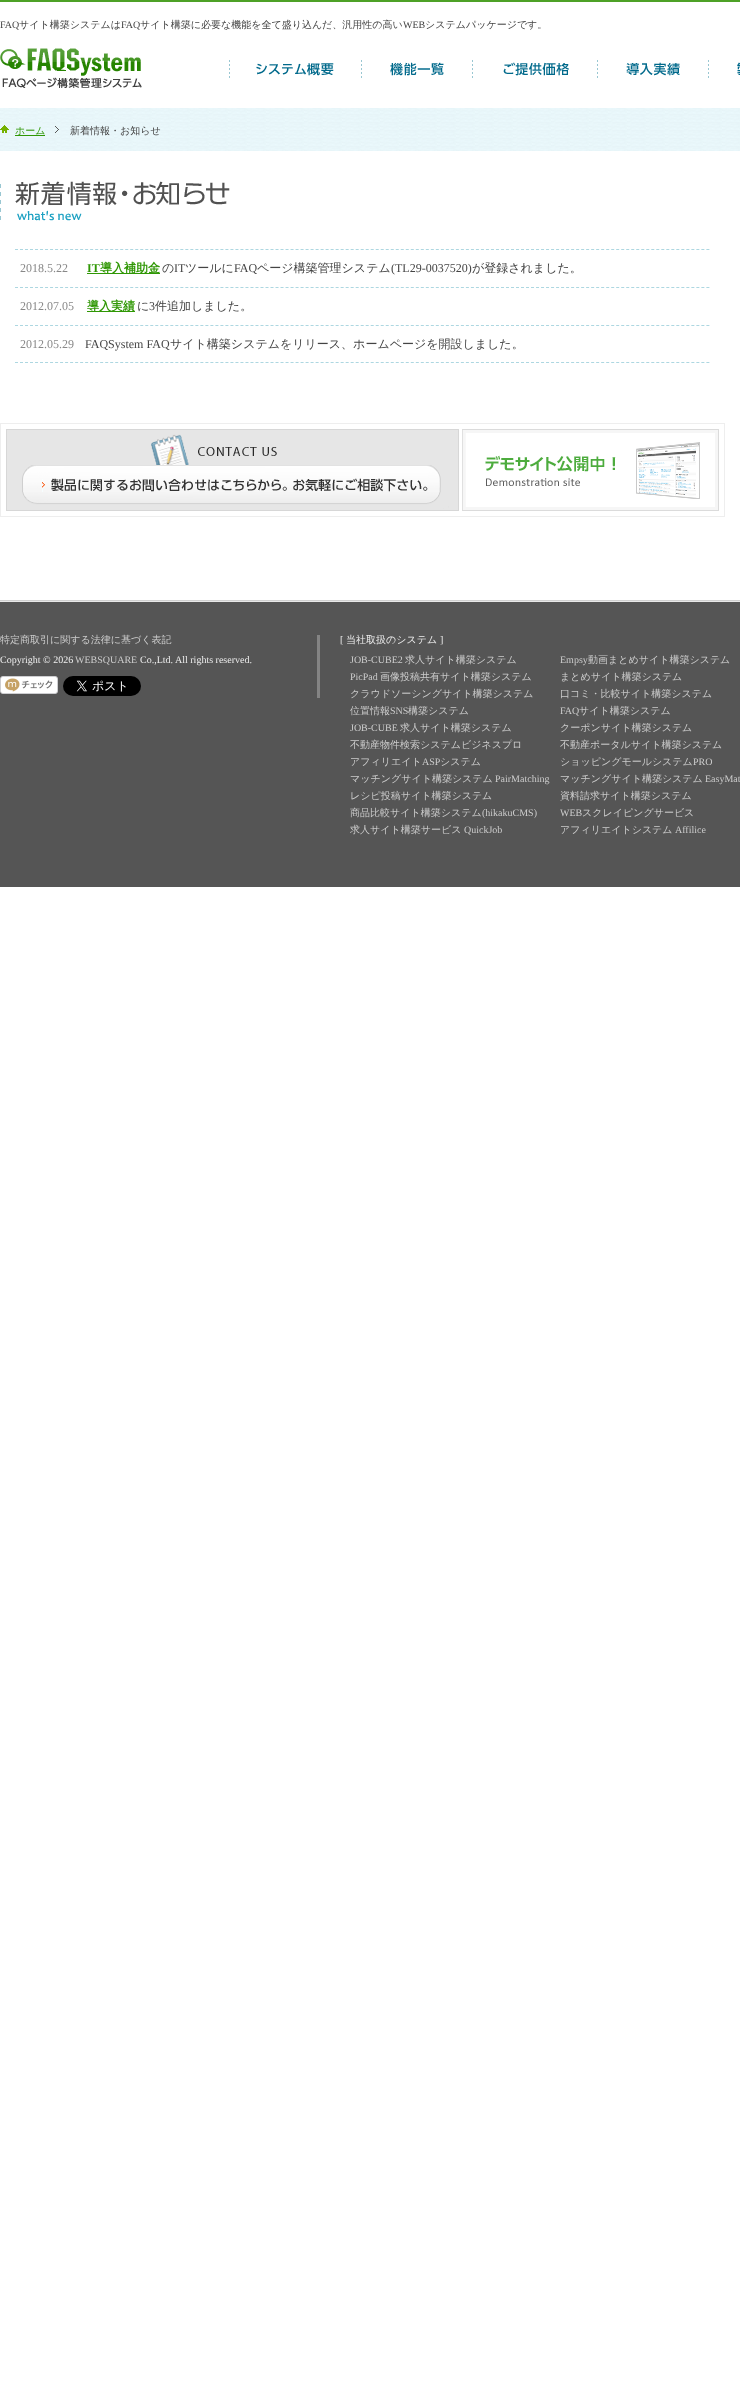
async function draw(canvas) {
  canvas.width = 740;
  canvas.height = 2381;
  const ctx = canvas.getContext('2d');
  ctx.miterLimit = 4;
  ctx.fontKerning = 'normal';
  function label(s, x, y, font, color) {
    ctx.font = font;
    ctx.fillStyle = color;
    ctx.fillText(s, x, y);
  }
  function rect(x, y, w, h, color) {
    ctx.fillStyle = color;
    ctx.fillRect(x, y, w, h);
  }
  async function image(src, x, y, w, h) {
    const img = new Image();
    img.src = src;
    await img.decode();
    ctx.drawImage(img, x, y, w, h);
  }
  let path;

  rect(0, 0, 740, 2381, '#fff');
  rect(0, 0, 740, 2, '#4da126');
  label('FAQ', 0, 28, '10px Liberation Serif', '#444');
  label('サイト構築システムは', 19, 28, '500 10px WenQuanYi Zen Hei', '#444');
  label('FAQ', 121, 28, '10px Liberation Serif', '#444');
  label('サイト構築に必要な機能を全て盛り込んだ、汎用性の高い', 140, 28, '500 10px WenQuanYi Zen Hei', '#444');
  label('WEB', 403, 28, '10px Liberation Serif', '#444');
  label('システムパッケージです。', 425, 28, '500 10px WenQuanYi Zen Hei', '#444');
  await image('assets/img1.png', 0, 48, 142, 40);
  await image('assets/img2.png', 229, 60, 133, 18);
  await image('assets/img3.png', 390, 60, 83, 18);
  await image('assets/img4.png', 503, 60, 95, 18);
  await image('assets/img5.png', 626, 60, 83, 18);
  await image('assets/img6.png', 737, 62, 3, 13);
  await image('assets/img7.png', 0, 108, 740, 43);
  await image('assets/img8.png', 0, 125, 9, 8);
  label('ホーム', 15, 134, '500 10px WenQuanYi Zen Hei', '#2f9704');
  rect(15, 135, 30, 1, '#2f9704');
  await image('assets/img9.png', 55, 126, 4, 7);
  label('新着情報・お知らせ', 70, 134, '500 10px WenQuanYi Zen Hei', '#444');
  await image('assets/img10.png', 0, 181, 230, 40);
  path = new Path2D('M15 249.5H710');
  ctx.strokeStyle = '#add7e1';
  ctx.setLineDash([3, 2.01]);
  ctx.stroke(path);
  path = new Path2D('M15 287.5H710');
  ctx.stroke(path);
  label('2018.5.22', 20, 272, '12px Liberation Serif', '#888');
  label('IT', 87, 272, 'bold 12px Liberation Serif', '#2f9704');
  rect(87, 273, 73, 1, '#2f9704');
  label('導入補助金', 100, 272, 'bold 12px WenQuanYi Zen Hei', '#2f9704');
  label('の', 162, 272, '500 12px WenQuanYi Zen Hei', '#444');
  label('IT', 174, 272, '12px Liberation Serif', '#444');
  label('ツールに', 185, 272, '500 12px WenQuanYi Zen Hei', '#444');
  label('FAQ', 234, 272, '12px Liberation Serif', '#444');
  label('ページ構築管理システム', 257, 272, '500 12px WenQuanYi Zen Hei', '#444');
  label('(TL29-0037520)', 391, 272, '12px Liberation Serif', '#444');
  label('が登録されました。', 472, 272, '500 12px WenQuanYi Zen Hei', '#444');
  path = new Path2D('M15 325.5H710');
  ctx.stroke(path);
  label('2012.07.05', 20, 310, '12px Liberation Serif', '#888');
  rect(87, 311, 48, 1, '#2f9704');
  label('導入実績', 87, 310, 'bold 12px WenQuanYi Zen Hei', '#2f9704');
  label('に', 137, 310, '500 12px WenQuanYi Zen Hei', '#444');
  label('3', 149, 310, '12px Liberation Serif', '#444');
  label('件追加しました。', 155, 310, '500 12px WenQuanYi Zen Hei', '#444');
  path = new Path2D('M15 362.5H710');
  ctx.stroke(path);
  label('2012.05.29', 20, 348, '12px Liberation Serif', '#888');
  label('FAQSystem FAQ', 85, 348, '12px Liberation Serif', '#444');
  label('サイト構築システムをリリース、ホームページを開設しました。', 170, 348, '500 12px WenQuanYi Zen Hei', '#444');
  ctx.strokeStyle = '#eee';
  ctx.setLineDash([]);
  ctx.strokeRect(0.5, 423.5, 724, 93);
  await image('assets/img11.png', 6, 429, 453, 82);
  await image('assets/img12.png', 462, 429, 257, 82);
  rect(0, 602, 740, 285, '#555');
  await image('assets/img13.png', 0, 600, 740, 2);
  rect(317, 635, 3, 63, '#848484');
  label('特定商取引に関する法律に基づく表記', 0, 643, '500 10px WenQuanYi Zen Hei', '#ccc');
  label('Copyright © 2026', 0, 663, '10px Liberation Serif', '#eee');
  label('WEBSQUARE', 75, 663, '10px Liberation Serif', '#ccc');
  label('Co.,Ltd. All rights reserved.', 140, 663, '10px Liberation Serif', '#eee');
  await image('assets/img14.png', 0, 676, 58, 18);
  await image('assets/img15.png', 63, 676, 78, 20);
  label('[', 340, 643, '10px Liberation Serif', '#eee');
  label('当社取扱のシステム', 346, 643, '500 10px WenQuanYi Zen Hei', '#eee');
  label(']', 440, 643, '10px Liberation Serif', '#eee');
  label('JOB-CUBE2', 350, 663, '10px Liberation Serif', '#ccc');
  label('求人サイト構築システム', 405, 663, '500 10px WenQuanYi Zen Hei', '#ccc');
  label('Empsy', 560, 663, '10px Liberation Serif', '#ccc');
  label('動画まとめサイト構築システム', 588, 663, '500 10px WenQuanYi Zen Hei', '#ccc');
  label('PicPad', 350, 680, '10px Liberation Serif', '#ccc');
  label('画像投稿共有サイト構築システム', 380, 680, '500 10px WenQuanYi Zen Hei', '#ccc');
  label('まとめサイト構築システム', 560, 680, '500 10px WenQuanYi Zen Hei', '#ccc');
  label('クラウドソーシングサイト構築システム', 350, 697, '500 10px WenQuanYi Zen Hei', '#ccc');
  label('口コミ・比較サイト構築システム', 560, 697, '500 10px WenQuanYi Zen Hei', '#ccc');
  label('位置情報', 350, 714, '500 10px WenQuanYi Zen Hei', '#ccc');
  label('SNS', 390, 714, '10px Liberation Serif', '#ccc');
  label('構築システム', 408, 714, '500 10px WenQuanYi Zen Hei', '#ccc');
  label('FAQ', 560, 714, '10px Liberation Serif', '#ccc');
  label('サイト構築システム', 579, 714, '500 10px WenQuanYi Zen Hei', '#ccc');
  label('JOB-CUBE', 350, 731, '10px Liberation Serif', '#ccc');
  label('求人サイト構築システム', 400, 731, '500 10px WenQuanYi Zen Hei', '#ccc');
  label('クーポンサイト構築システム', 560, 731, '500 10px WenQuanYi Zen Hei', '#ccc');
  label('不動産物件検索システムビジネスプロ', 350, 748, '500 10px WenQuanYi Zen Hei', '#ccc');
  label('不動産ポータルサイト構築システム', 560, 748, '500 10px WenQuanYi Zen Hei', '#ccc');
  label('アフィリエイト', 350, 765, '500 10px WenQuanYi Zen Hei', '#ccc');
  label('ASP', 422, 765, '10px Liberation Serif', '#ccc');
  label('システム', 440, 765, '500 10px WenQuanYi Zen Hei', '#ccc');
  label('ショッピングモールシステム', 560, 765, '500 10px WenQuanYi Zen Hei', '#ccc');
  label('PRO', 693, 765, '10px Liberation Serif', '#ccc');
  label('マッチングサイト構築システム', 350, 782, '500 10px WenQuanYi Zen Hei', '#ccc');
  label('PairMatching', 495, 782, '10px Liberation Serif', '#ccc');
  label('マッチングサイト構築システム', 560, 782, '500 10px WenQuanYi Zen Hei', '#ccc');
  label('EasyMat', 705, 782, '10px Liberation Serif', '#ccc');
  label('レシピ投稿サイト構築システム', 350, 799, '500 10px WenQuanYi Zen Hei', '#ccc');
  label('資料請求サイト構築システム', 560, 799, '500 10px WenQuanYi Zen Hei', '#ccc');
  label('商品比較サイト構築システム', 350, 816, '500 10px WenQuanYi Zen Hei', '#ccc');
  label('(hikakuCMS)', 482, 816, '10px Liberation Serif', '#ccc');
  label('WEB', 560, 816, '10px Liberation Serif', '#ccc');
  label('スクレイピングサービス', 582, 816, '500 10px WenQuanYi Zen Hei', '#ccc');
  label('求人サイト構築サービス', 350, 833, '500 10px WenQuanYi Zen Hei', '#ccc');
  label('QuickJob', 464, 833, '10px Liberation Serif', '#ccc');
  label('アフィリエイトシステム', 560, 833, '500 10px WenQuanYi Zen Hei', '#ccc');
  label('Affilice', 675, 833, '10px Liberation Serif', '#ccc');
}

draw(document.querySelector('canvas'));
